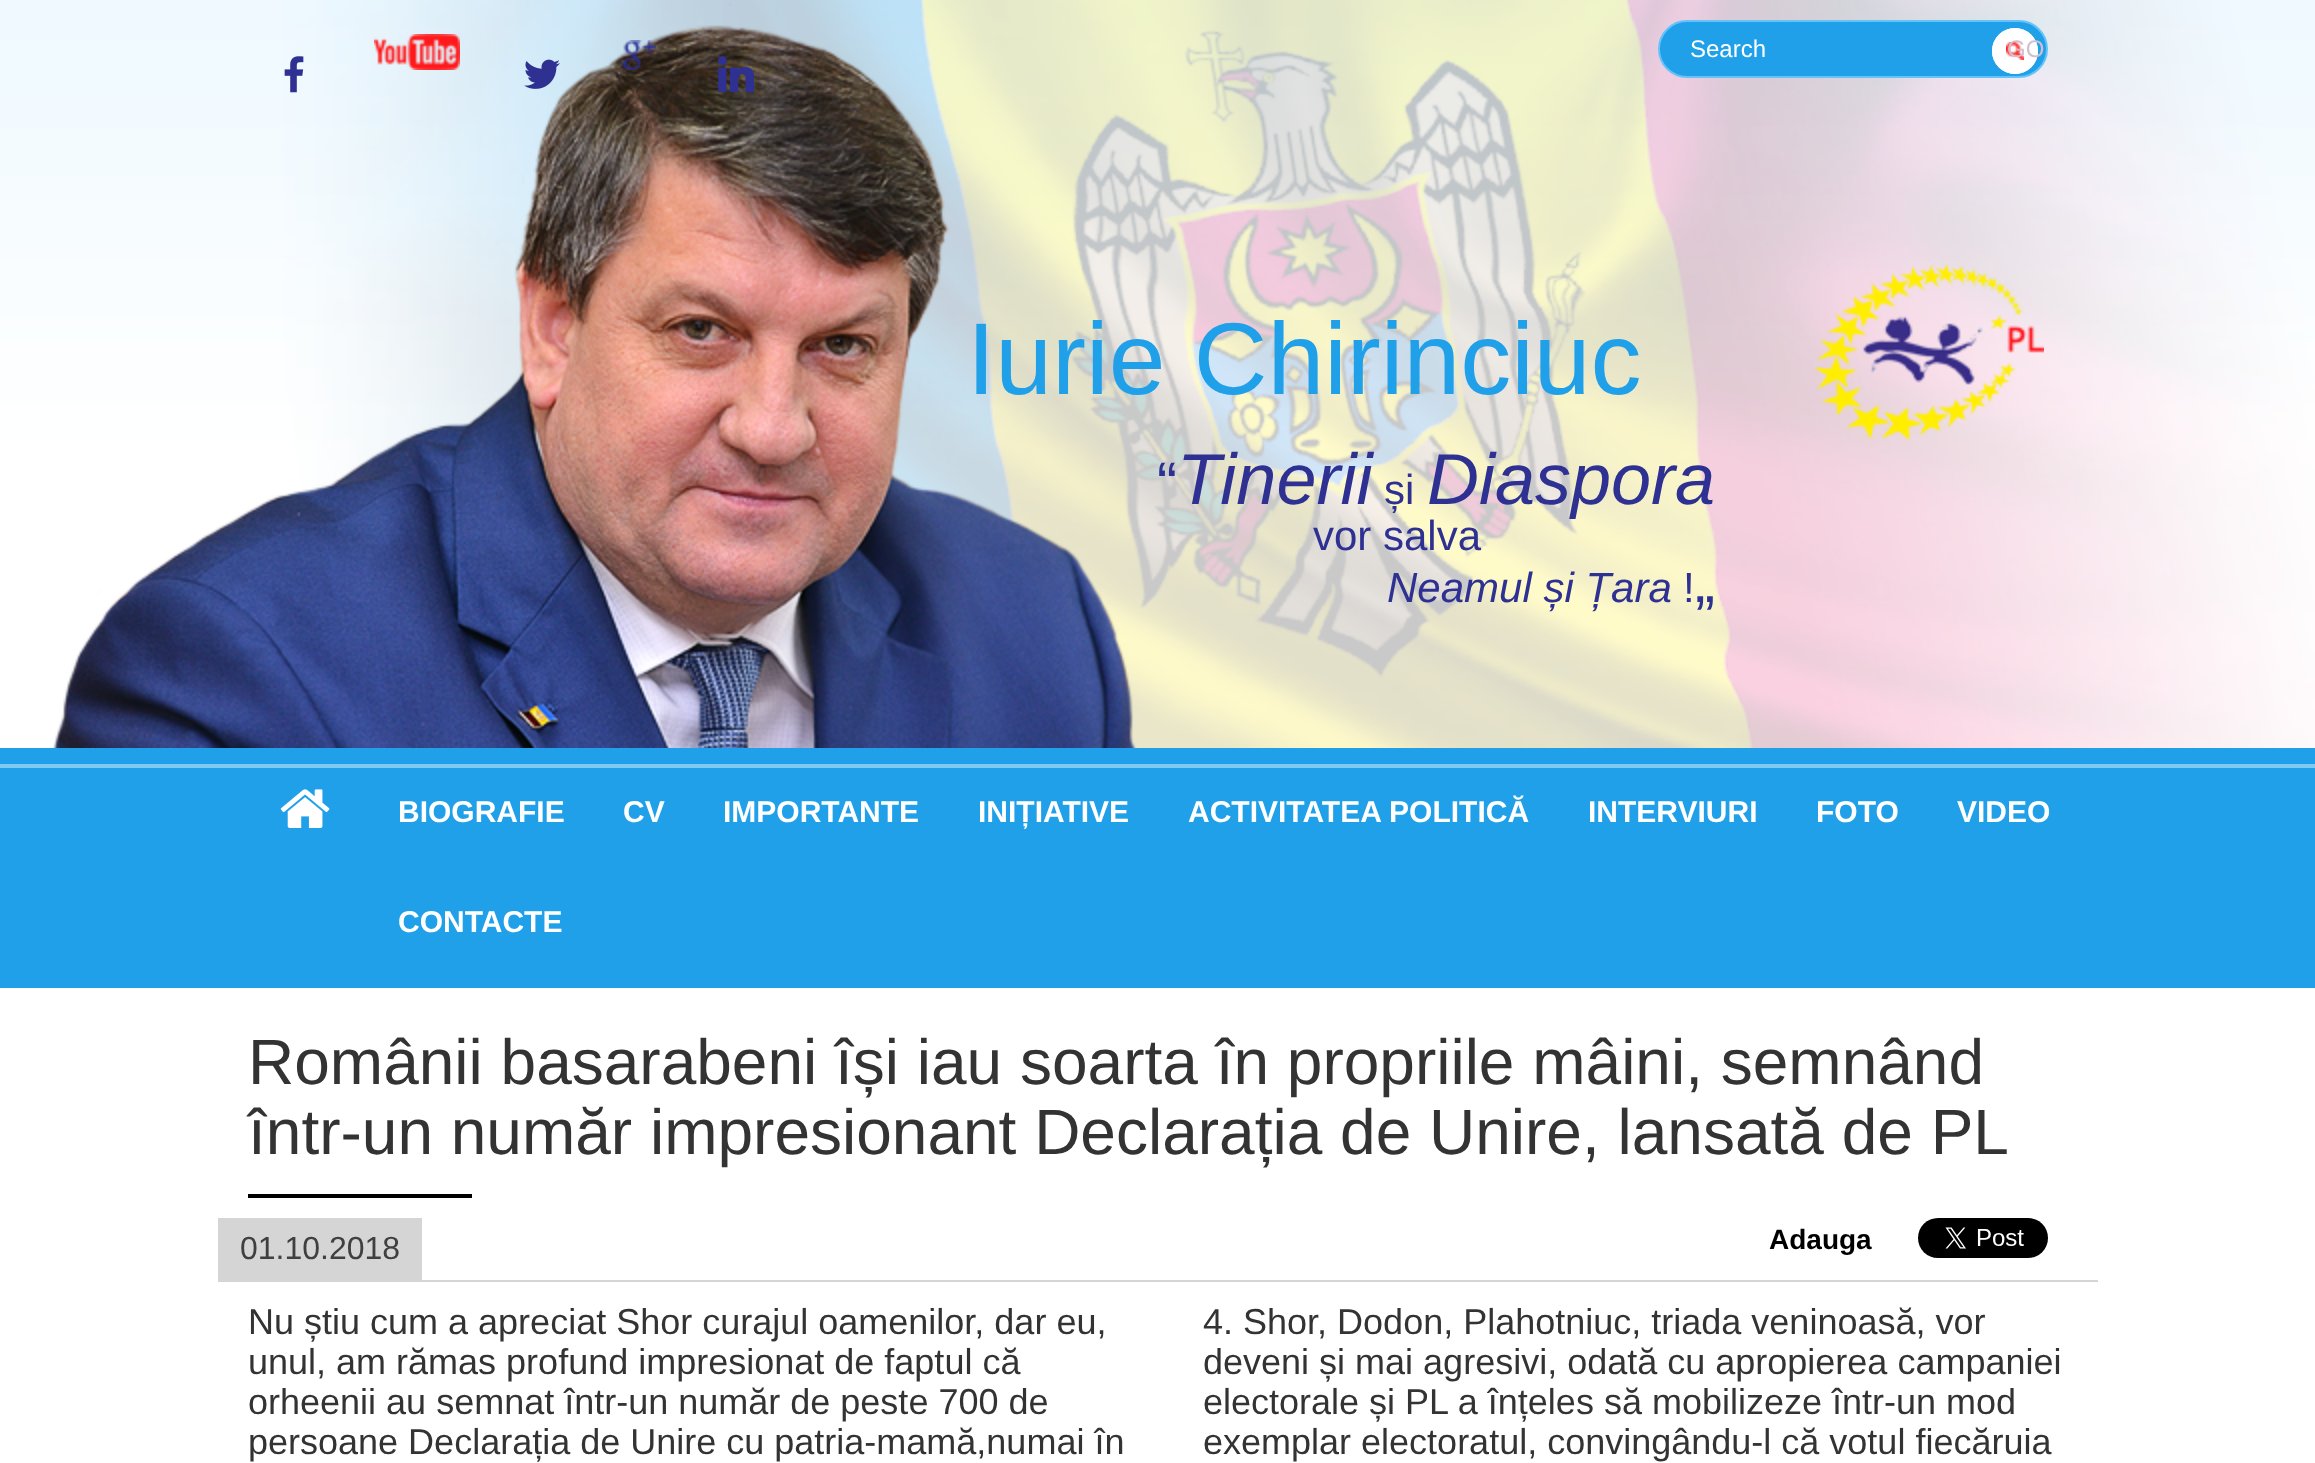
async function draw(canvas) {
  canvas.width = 2315;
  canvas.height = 1463;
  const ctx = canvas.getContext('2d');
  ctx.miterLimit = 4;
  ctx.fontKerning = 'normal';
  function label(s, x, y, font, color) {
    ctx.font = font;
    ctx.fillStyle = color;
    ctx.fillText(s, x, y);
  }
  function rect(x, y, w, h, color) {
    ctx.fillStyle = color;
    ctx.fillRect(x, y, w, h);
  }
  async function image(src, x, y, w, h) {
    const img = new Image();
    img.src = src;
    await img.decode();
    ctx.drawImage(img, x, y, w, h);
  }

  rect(0, 0, 2315, 1463, '#fff');
  await image('assets/img1.png', 0, 0, 2315, 748);
  await image('assets/img2.png', 284, 56, 20, 37);
  await image('assets/img3.png', 374, 34, 86, 36);
  await image('assets/img4.png', 524, 59, 36, 30);
  await image('assets/img5.png', 622, 40, 34, 30);
  await image('assets/img6.png', 718, 56, 36, 37);
  ctx.fillStyle = '#20a0e9';
  ctx.beginPath();
  ctx.roundRect(1659, 21, 388, 56, 28);
  ctx.fill();
  ctx.strokeStyle = '#65c3fa';
  ctx.lineWidth = 2;
  ctx.stroke();
  label('Search', 1690, 57, '24px Liberation Sans', '#fff');
  ctx.beginPath();
  ctx.arc(2015, 51, 23, 0, 2 * Math.PI);
  ctx.fill();
  await image('assets/img7.png', 2006, 42, 18, 18);
  ctx.beginPath();
  ctx.arc(2015, 51, 22, 0, 2 * Math.PI);
  ctx.strokeStyle = '#fff';
  ctx.stroke();
  label('GO', 2007, 57, '24px Liberation Sans', '#d3bfce');
  label('Iurie Chirinciuc', 967, 394, '102px Liberation Sans', '#20a0e9');
  label('“', 1157, 504, '60px Liberation Sans', '#2e3192');
  label('Tinerii', 1177, 504, 'italic 72px Liberation Sans', '#2e3192');
  label('Diaspora', 1427, 504, 'italic 72px Liberation Sans', '#2e3192');
  label('și', 1384, 504, '42px Liberation Sans', '#2e3192');
  label('vor salva', 1313, 550, '42px Liberation Sans', '#2e3192');
  label('Neamul și Țara', 1387, 602, 'italic 42px Liberation Sans', '#2e3192');
  label('!', 1683, 602, '42px Liberation Sans', '#2e3192');
  label('„', 1695, 602, '60px Liberation Sans', '#2e3192');
  await image('assets/img8.png', 1814, 264, 230, 176);
  rect(0, 748, 2315, 240, '#20a0e9');
  rect(0, 764, 2315, 4, '#80c9f2');
  await image('assets/img9.png', 280, 789, 50, 39);
  label('BIOGRAFIE', 398, 822, 'bold 30px Liberation Sans', '#fff');
  label('CV', 623, 822, 'bold 30px Liberation Sans', '#fff');
  label('IMPORTANTE', 723, 822, 'bold 30px Liberation Sans', '#fff');
  label('INIȚIATIVE', 978, 822, 'bold 30px Liberation Sans', '#fff');
  label('ACTIVITATEA POLITICĂ', 1188, 822, 'bold 30px Liberation Sans', '#fff');
  label('INTERVIURI', 1588, 822, 'bold 30px Liberation Sans', '#fff');
  label('FOTO', 1816, 822, 'bold 30px Liberation Sans', '#fff');
  label('VIDEO', 1957, 822, 'bold 30px Liberation Sans', '#fff');
  label('CONTACTE', 398, 932, 'bold 30px Liberation Sans', '#fff');
  label('Românii basarabeni își iau soarta în propriile mâini, semnând', 248, 1084, '64px Liberation Sans', '#333');
  label('într-un număr impresionant Declarația de Unire, lansată de PL', 248, 1154, '64px Liberation Sans', '#333');
  rect(248, 1194, 224, 4, '#000');
  rect(218, 1218, 204, 62, '#d5d5d5');
  label('01.10.2018', 240, 1259, '32px Liberation Sans', '#404040');
  label('Adauga', 1769, 1249, 'bold 28px Liberation Sans', '#000');
  await image('assets/img10.png', 1918, 1218, 130, 40);
  rect(218, 1280, 1880, 2, '#d5d5d5');
  label('Nu știu cum a apreciat Shor curajul oamenilor, dar eu,', 248, 1334, '36px Liberation Sans', '#333');
  label('unul, am rămas profund impresionat de faptul că', 248, 1374, '36px Liberation Sans', '#333');
  label('orheenii au semnat într-un număr de peste 700 de', 248, 1414, '36px Liberation Sans', '#333');
  label('persoane Declarația de Unire cu patria-mamă,numai în', 248, 1454, '36px Liberation Sans', '#333');
  label('4. Shor, Dodon, Plahotniuc, triada veninoasă, vor', 1203, 1334, '36px Liberation Sans', '#333');
  label('deveni și mai agresivi, odată cu apropierea campaniei', 1203, 1374, '36px Liberation Sans', '#333');
  label('electorale și PL a înțeles să mobilizeze într-un mod', 1203, 1414, '36px Liberation Sans', '#333');
  label('exemplar electoratul, convingându-l că votul fiecăruia', 1203, 1454, '36px Liberation Sans', '#333');
}

draw(document.querySelector('canvas'));
